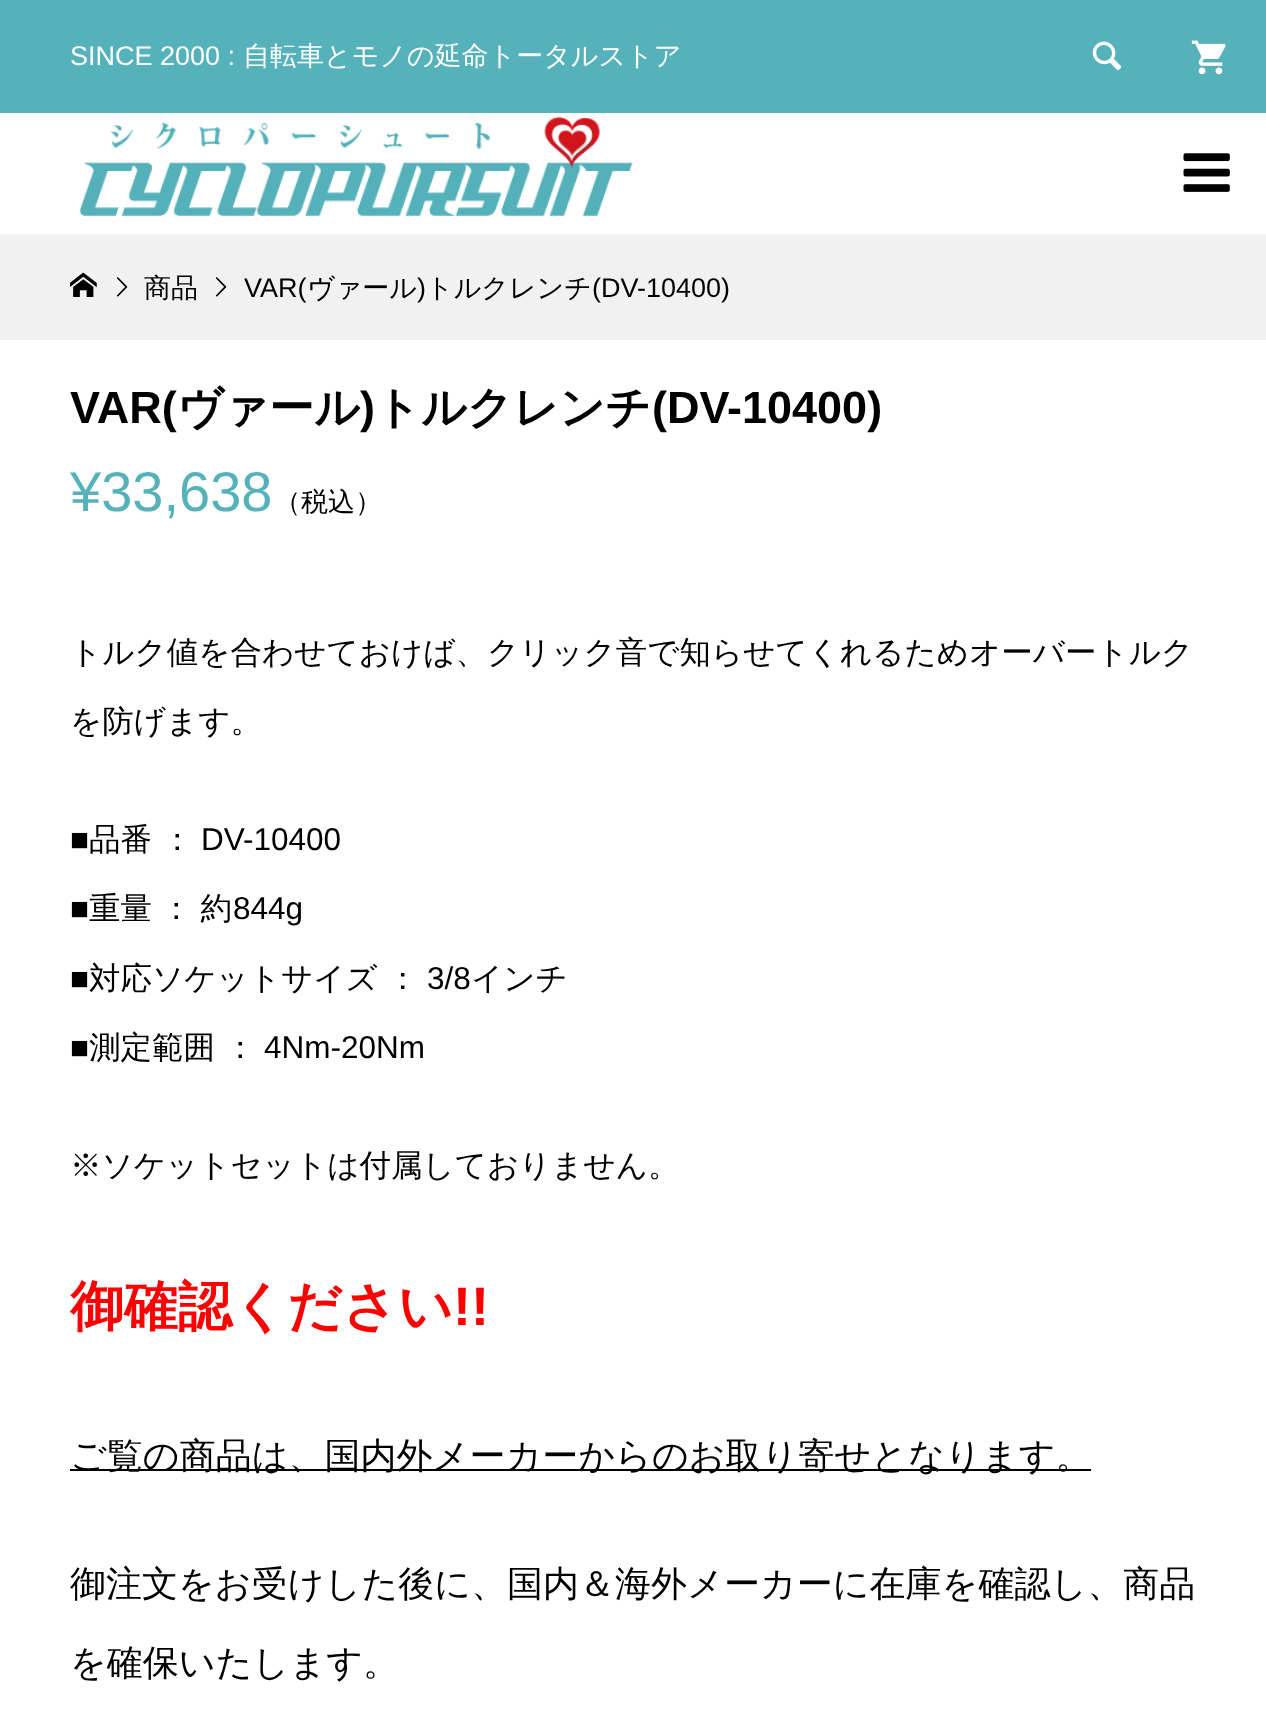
async function draw(canvas) {
  canvas.width = 1266;
  canvas.height = 1709;
  const ctx = canvas.getContext('2d');
  ctx.miterLimit = 4;
  ctx.fontKerning = 'normal';
  function label(s, x, y, font, color) {
    ctx.font = font;
    ctx.fillStyle = color;
    ctx.fillText(s, x, y);
  }
  function rect(x, y, w, h, color) {
    ctx.fillStyle = color;
    ctx.fillRect(x, y, w, h);
  }
  async function image(src, x, y, w, h) {
    const img = new Image();
    img.src = src;
    await img.decode();
    ctx.drawImage(img, x, y, w, h);
  }

  rect(0, 0, 1266, 1709, '#fff');
  rect(0, 0, 1266, 113, '#56b2ba');
  label('SINCE 2000 :', 70, 65, '27px Liberation Sans', '#fff');
  label('自転車とモノの延命トータルストア', 243, 65, '500 27px WenQuanYi Zen Hei', '#fff');
  await image('assets/img1.png', 1092, 41, 30, 29);
  await image('assets/img2.png', 1191, 40, 35, 35);
  await image('assets/img3.png', 79, 117, 554, 100);
  await image('assets/img4.png', 1183, 153, 47, 39);
  rect(0, 234, 1266, 106, '#f1f1f1');
  await image('assets/img5.png', 70, 272, 27, 25);
  await image('assets/img6.png', 116, 277, 12, 20);
  label('商品', 144, 297, '500 27px WenQuanYi Zen Hei', '#000');
  await image('assets/img6.png', 215, 277, 12, 20);
  label('VAR(', 244, 297, '27px Liberation Sans', '#000');
  label('ヴァール', 307, 297, '500 27px WenQuanYi Zen Hei', '#000');
  label(')', 417, 297, '27px Liberation Sans', '#000');
  label('トルクレンチ', 426, 297, '500 27px WenQuanYi Zen Hei', '#000');
  label('(DV-10400)', 592, 297, '27px Liberation Sans', '#000');
  label('VAR(', 70, 423, 'bold 45px Liberation Sans', '#000');
  label('ヴァール', 177, 423, 'bold 45px WenQuanYi Zen Hei', '#000');
  label(')', 360, 423, 'bold 45px Liberation Sans', '#000');
  label('トルクレンチ', 375, 423, 'bold 45px WenQuanYi Zen Hei', '#000');
  label('(DV-10400)', 652, 423, 'bold 45px Liberation Sans', '#000');
  label('¥33,638', 70, 511, '56px Liberation Sans', '#56b2ba');
  label('（税込）', 274, 511, '500 27px WenQuanYi Zen Hei', '#000');
  label('トルク値を合わせておけば、クリック音で知らせてくれるためオーバートルク', 70, 663, '500 31.5px WenQuanYi Zen Hei', '#000');
  label('を防げます。', 70, 732, '500 31.5px WenQuanYi Zen Hei', '#000');
  label('■', 70, 850, '31.5px Liberation Sans', '#000');
  label('品番 ：', 89, 850, '500 31.5px WenQuanYi Zen Hei', '#000');
  label('DV-10400', 201, 850, '31.5px Liberation Sans', '#000');
  label('■', 70, 919, '31.5px Liberation Sans', '#000');
  ctx.wordSpacing = '-1px';
  label('重量 ： 約', 89, 919, '500 31.5px WenQuanYi Zen Hei', '#000');
  ctx.wordSpacing = '0px';
  label('844g', 233, 919, '31.5px Liberation Sans', '#000');
  label('■', 70, 989, '31.5px Liberation Sans', '#000');
  label('対応ソケットサイズ ：', 89, 989, '500 31.5px WenQuanYi Zen Hei', '#000');
  label('3/8', 427, 989, '31.5px Liberation Sans', '#000');
  label('インチ', 471, 989, '500 31.5px WenQuanYi Zen Hei', '#000');
  label('■', 70, 1058, '31.5px Liberation Sans', '#000');
  label('測定範囲 ：', 89, 1058, '500 31.5px WenQuanYi Zen Hei', '#000');
  label('4Nm-20Nm', 264, 1058, '31.5px Liberation Sans', '#000');
  label('※ソケットセットは付属しておりません。', 70, 1176, '500 31.5px WenQuanYi Zen Hei', '#000');
  label('御確認ください', 70, 1325, 'bold 54px WenQuanYi Zen Hei', '#f00');
  label('!!', 453, 1325, 'bold 54px Liberation Sans', '#f00');
  rect(70, 1469, 1021, 2, '#000');
  label('ご覧の商品は、国内外メーカーからのお取り寄せとなります。', 70, 1468, '500 36px WenQuanYi Zen Hei', '#000');
  label('御注文をお受けした後に、国内＆海外メーカーに在庫を確認し、商品', 70, 1596, '500 36px WenQuanYi Zen Hei', '#000');
  label('を確保いたします。', 70, 1675, '500 36px WenQuanYi Zen Hei', '#000');
}

draw(document.querySelector('canvas'));
